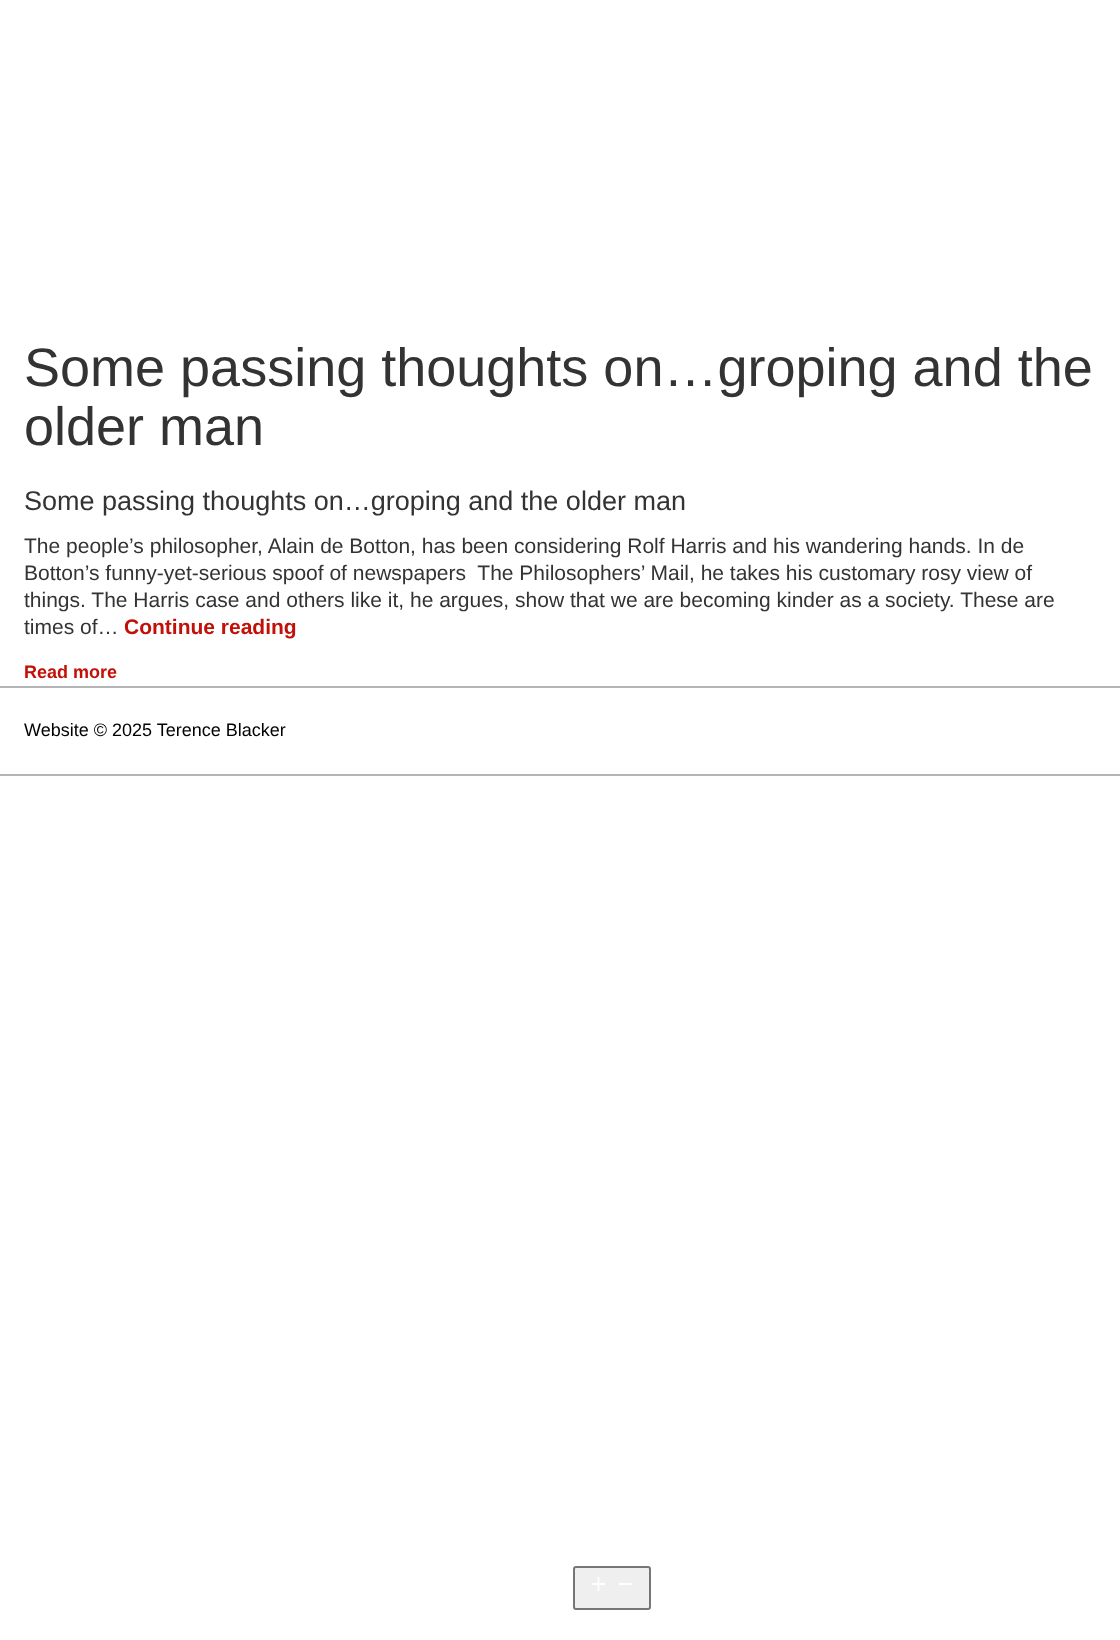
async function draw(canvas) {
  canvas.width = 1120;
  canvas.height = 1640;
  const ctx = canvas.getContext('2d');
  ctx.miterLimit = 4;
  ctx.fontKerning = 'normal';
  function label(s, x, y, font, color) {
    ctx.font = font;
    ctx.fillStyle = color;
    ctx.fillText(s, x, y);
  }
  function rect(x, y, w, h, color) {
    ctx.fillStyle = color;
    ctx.fillRect(x, y, w, h);
  }
  async function image(src, x, y, w, h) {
    const img = new Image();
    img.src = src;
    await img.decode();
    ctx.drawImage(img, x, y, w, h);
  }

  rect(0, 0, 1120, 1640, '#fff');
  label('Some passing thoughts on…groping and the', 24, 386, '54px Liberation Sans', '#333');
  label('older man', 24, 445, '54px Liberation Sans', '#333');
  label('Some passing thoughts on…groping and the older man', 24, 510, '27px Liberation Sans', '#333');
  label('The people’s philosopher, Alain de Botton, has been considering Rolf Harris and his wandering hands. In de', 24, 553, '21px Liberation Sans', '#333');
  label('Botton’s funny-yet-serious spoof of newspapers  The Philosophers’ Mail, he takes his customary rosy view of', 24, 580, '21px Liberation Sans', '#333');
  label('things. The Harris case and others like it, he argues, show that we are becoming kinder as a society. These are', 24, 607, '21px Liberation Sans', '#333');
  label('times of…', 24, 634, '21px Liberation Sans', '#333');
  label('Continue reading', 124, 634, 'bold 21px Liberation Sans', '#c11007');
  label('Read more', 24, 678, 'bold 18px Liberation Sans', '#c11007');
  rect(0, 686, 1120, 2, '#b2b4b6');
  rect(0, 774, 1120, 2, '#b2b4b6');
  label('Website © 2025 Terence Blacker', 24, 736, '18px Liberation Sans', '#000');
  ctx.fillStyle = '#efefef';
  ctx.beginPath();
  ctx.roundRect(574, 1567, 76, 42, 2);
  ctx.fill();
  ctx.strokeStyle = '#767676';
  ctx.lineWidth = 2;
  ctx.stroke();
  await image('assets/img1.png', 592, 1577, 13, 14);
  rect(619, 1583, 13, 2, '#fff');
}

draw(document.querySelector('canvas'));
